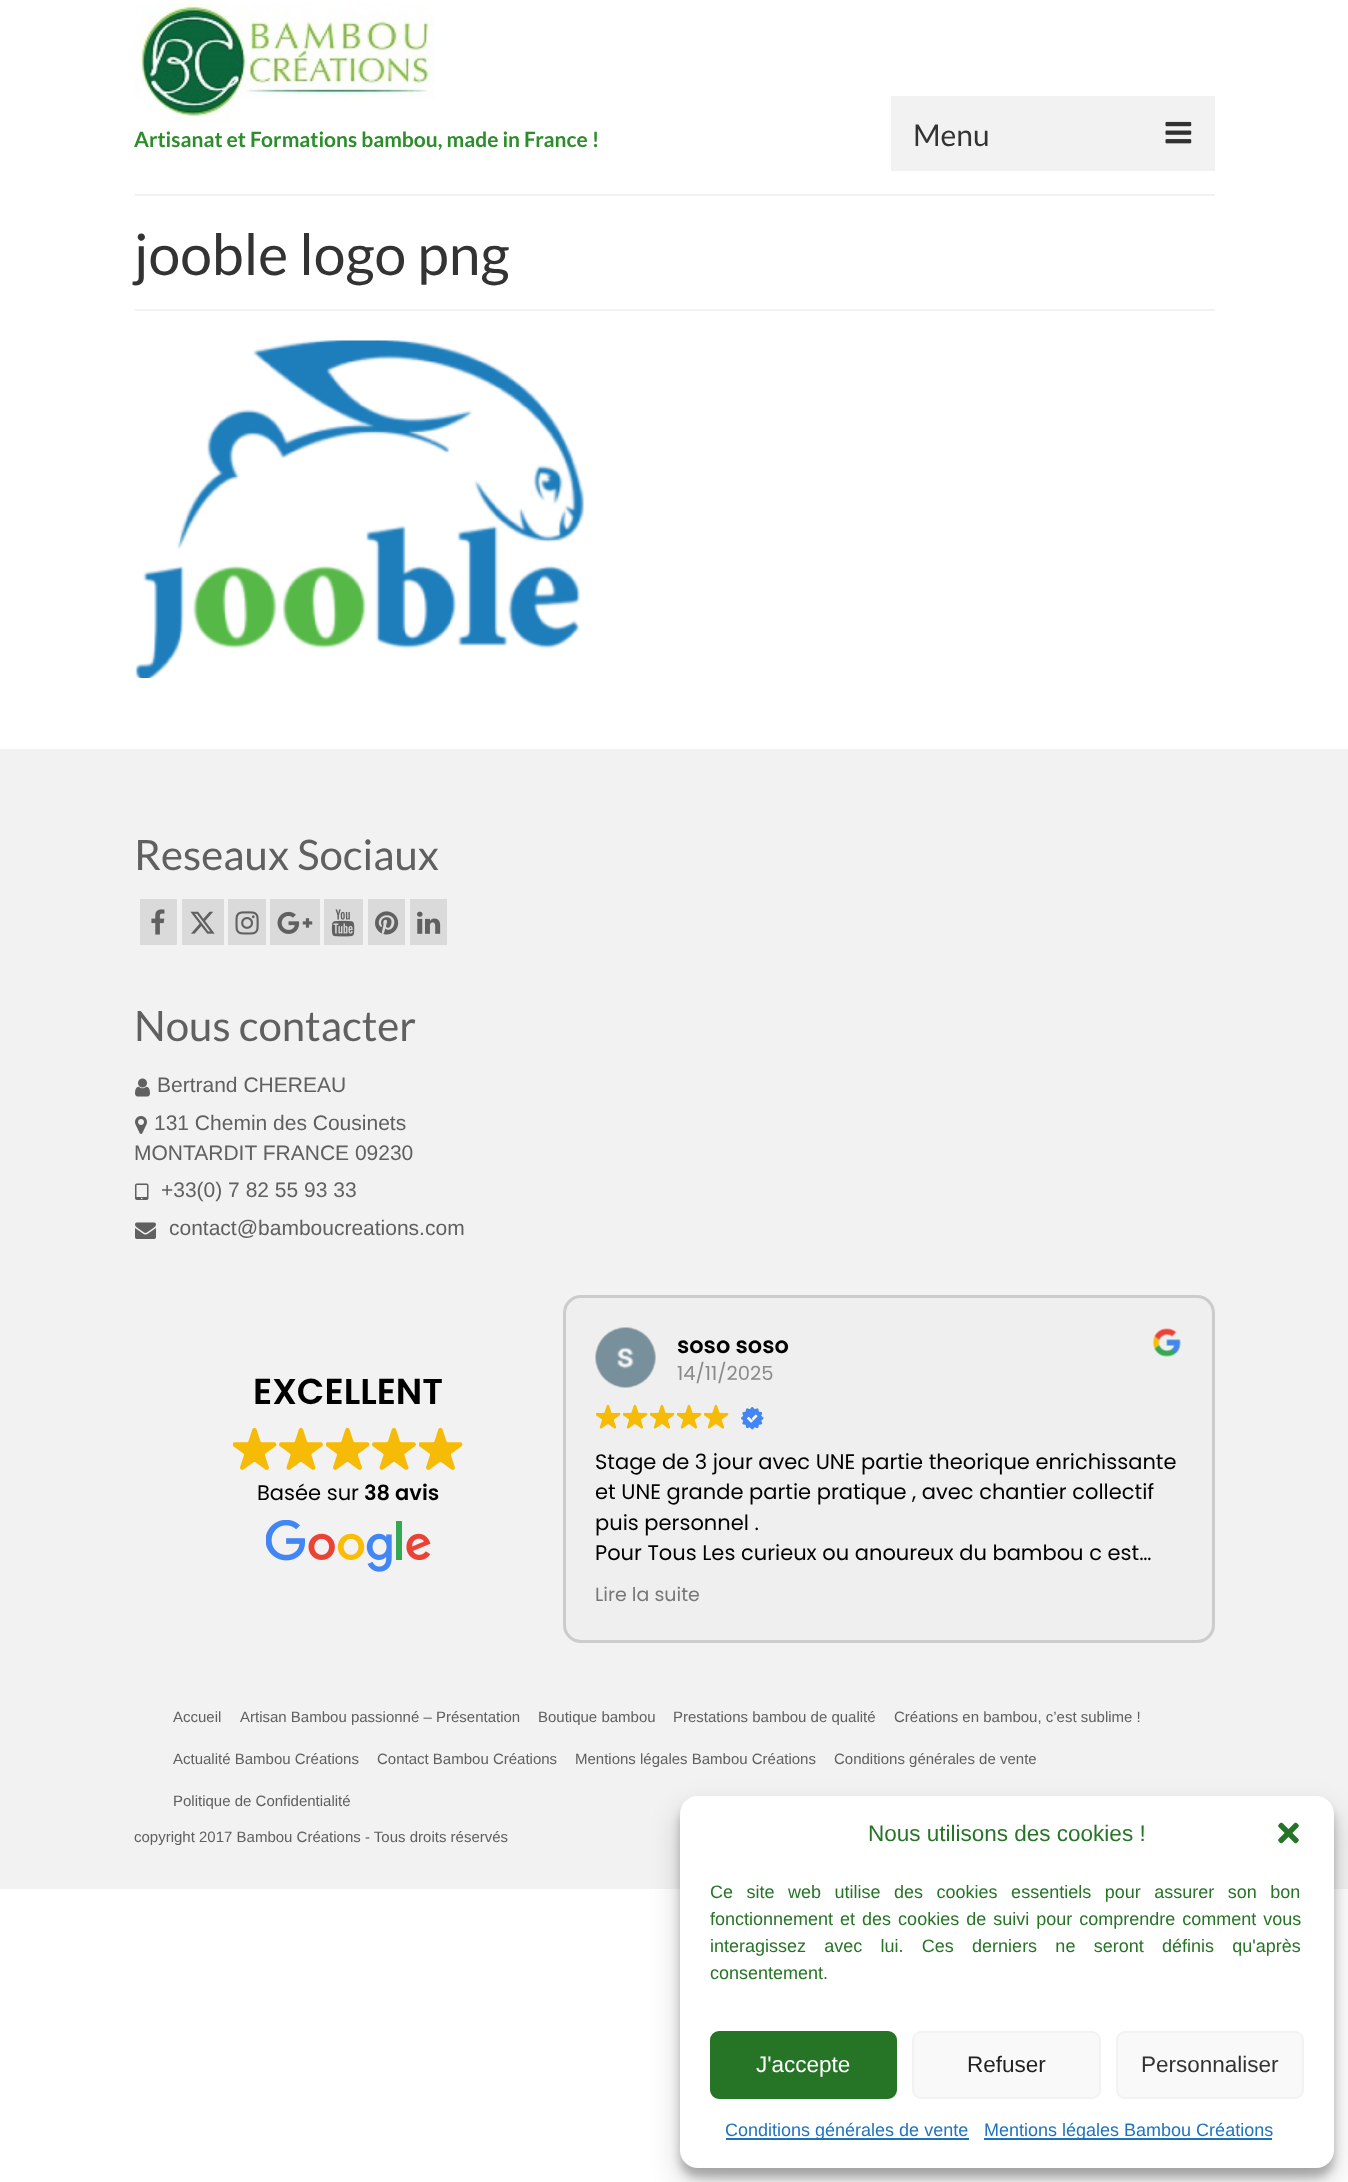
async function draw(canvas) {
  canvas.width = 1348;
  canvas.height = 2182;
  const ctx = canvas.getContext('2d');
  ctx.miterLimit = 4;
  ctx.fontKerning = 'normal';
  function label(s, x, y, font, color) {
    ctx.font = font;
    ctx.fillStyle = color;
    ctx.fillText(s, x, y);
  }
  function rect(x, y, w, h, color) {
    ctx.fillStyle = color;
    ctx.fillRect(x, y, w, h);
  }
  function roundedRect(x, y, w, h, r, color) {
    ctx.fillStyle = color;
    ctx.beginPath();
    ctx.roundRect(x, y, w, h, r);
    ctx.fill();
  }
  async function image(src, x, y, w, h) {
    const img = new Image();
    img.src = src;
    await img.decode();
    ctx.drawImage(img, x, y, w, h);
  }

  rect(0, 0, 1348, 2182, '#fff');
  await image('assets/img1.png', 135, 3, 300, 120);
  label('Artisanat et Formations bambou, made in France !', 134, 147, 'bold 21px Lato', '#2d8c2b');
  rect(891, 96, 324, 75, '#f2f2f2');
  label('Menu', 913, 146, '30px Lato', '#333');
  await image('assets/img2.png', 1165, 121, 27, 23);
  rect(135, 194, 1080, 2, '#f2f2f2');
  rect(135, 309, 1080, 2, '#f2f2f2');
  label('jooble logo png', 134, 275, '57px Lato', '#333');
  await image('assets/img3.png', 135, 340, 450, 338);
  rect(0, 749, 1348, 1140, '#f2f2f2');
  label('Reseaux Sociaux', 134, 870, '42px Lato', '#606060');
  rect(140, 899, 37, 46, '#dadada');
  await image('assets/img4.png', 151, 909, 14, 26);
  rect(182, 899, 42, 46, '#dadada');
  await image('assets/img5.png', 190, 911, 25, 23);
  rect(228, 899, 38, 46, '#dadada');
  await image('assets/img6.png', 235, 911, 24, 24);
  rect(270, 899, 50, 46, '#dadada');
  await image('assets/img7.png', 277, 911, 36, 23);
  rect(324, 899, 39, 46, '#dadada');
  await image('assets/img8.png', 331, 909, 24, 28);
  rect(368, 899, 37, 46, '#dadada');
  await image('assets/img9.png', 375, 911, 24, 24);
  rect(410, 899, 37, 46, '#dadada');
  await image('assets/img10.png', 417, 911, 24, 23);
  label('Nous contacter', 134, 1041, '42px Lato', '#606060');
  await image('assets/img11.png', 135, 1078, 15, 19);
  label('Bertrand CHEREAU', 157, 1092, '21px Liberation Sans', '#606060');
  await image('assets/img12.png', 135, 1116, 12, 18);
  label('131 Chemin des Cousinets', 154, 1130, '21px Liberation Sans', '#606060');
  label('MONTARDIT FRANCE 09230', 134, 1160, '21px Liberation Sans', '#606060');
  await image('assets/img13.png', 135, 1183, 14, 17);
  label('+33(0) 7 82 55 93 33', 161, 1197, '21px Liberation Sans', '#606060');
  await image('assets/img14.png', 135, 1222, 21, 17);
  label('contact@bamboucreations.com', 169, 1235, '21px Liberation Sans', '#606060');
  label('EXCELLENT', 253, 1404, '600 36px Poppins', '#000');
  await image('assets/img15.png', 233, 1427, 44, 43);
  await image('assets/img16.png', 279, 1427, 44, 43);
  await image('assets/img15.png', 326, 1427, 44, 43);
  await image('assets/img16.png', 372, 1427, 44, 43);
  await image('assets/img15.png', 419, 1427, 44, 43);
  label('Basée sur', 257, 1500, '21px Poppins', '#000');
  label('38 avis', 364, 1500, '600 21px Poppins', '#000');
  await image('assets/img17.png', 266, 1520, 165, 52);
  ctx.fillStyle = '#efefef';
  ctx.beginPath();
  ctx.roundRect(564.5, 1296.5, 649, 345, 16.5);
  ctx.fill();
  ctx.strokeStyle = '#ccc';
  ctx.lineWidth = 3;
  ctx.stroke();
  await image('assets/img18.png', 595, 1327, 61, 61);
  label('soso soso', 677, 1353, '600 22.5px Poppins', '#000');
  label('14/11/2025', 677, 1380, '19.5px Poppins', '#8a8a8a');
  await image('assets/img19.png', 1152, 1328, 29, 29);
  await image('assets/img20.png', 596, 1404, 25, 25);
  await image('assets/img20.png', 623, 1404, 25, 25);
  await image('assets/img20.png', 650, 1404, 25, 25);
  await image('assets/img20.png', 677, 1404, 25, 25);
  await image('assets/img20.png', 704, 1404, 25, 25);
  await image('assets/img21.png', 741, 1407, 23, 23);
  label('Stage de 3 jour avec UNE partie theorique enrichissante', 595, 1469, '21px Poppins', '#000');
  ctx.save();
  ctx.beginPath();
  ctx.rect(596, 1446, 586, 122);
  ctx.clip();
  label('et UNE grande partie pratique , avec chantier collectif', 595, 1499, '21px Poppins', '#000');
  ctx.restore();
  label('puis personnel .', 595, 1530, '21px Poppins', '#000');
  label('Pour Tous Les curieux ou anoureux du bambou c est…', 595, 1560, '21px Poppins', '#000');
  label('Lire la suite', 595, 1601, '19px Poppins', '#787878');
  label('Accueil', 173, 1722, '15px Liberation Sans', '#606060');
  label('Artisan Bambou passionné – Présentation', 240, 1722, '15px Liberation Sans', '#606060');
  label('Boutique bambou', 538, 1722, '15px Liberation Sans', '#606060');
  label('Prestations bambou de qualité', 673, 1722, '15px Liberation Sans', '#606060');
  label('Créations en bambou, c’est sublime !', 894, 1722, '15px Liberation Sans', '#606060');
  label('Actualité Bambou Créations', 173, 1764, '15px Liberation Sans', '#606060');
  label('Contact Bambou Créations', 377, 1764, '15px Liberation Sans', '#606060');
  label('Mentions légales Bambou Créations', 575, 1764, '15px Liberation Sans', '#606060');
  label('Conditions générales de vente', 834, 1764, '15px Liberation Sans', '#606060');
  label('Politique de Confidentialité', 173, 1806, '15px Liberation Sans', '#606060');
  label('copyright 2017 Bambou Créations - Tous droits réservés', 134, 1842, '15px Liberation Sans', '#606060');
  ctx.fillStyle = '#0000003b';
  ctx.filter = 'blur(4.5px)';
  ctx.beginPath();
  ctx.roundRect(680, 1805, 654, 372, 18);
  ctx.fill();
  ctx.filter = 'none';
  ctx.fillStyle = '#00000030';
  ctx.filter = 'blur(15px)';
  ctx.beginPath();
  ctx.roundRect(680, 1811, 654, 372, 18);
  ctx.fill();
  ctx.filter = 'none';
  roundedRect(680, 1796, 654, 372, 18, '#fff');
  label('Nous utilisons des cookies !', 868, 1841, '22.5px Liberation Sans', '#267426');
  await image('assets/img22.png', 1278, 1822, 21, 22);
  ctx.wordSpacing = '8.5px';
  label('Ce site web utilise des cookies essentiels pour assurer son bon', 710, 1898, '18px Liberation Sans', '#267426');
  ctx.wordSpacing = '2px';
  label('fonctionnement et des cookies de suivi pour comprendre comment vous', 710, 1925, '18px Liberation Sans', '#267426');
  ctx.wordSpacing = '13.25px';
  label('interagissez avec lui. Ces derniers ne seront définis qu\'après', 710, 1952, '18px Liberation Sans', '#267426');
  ctx.wordSpacing = '0px';
  label('consentement.', 710, 1979, '18px Liberation Sans', '#267426');
  ctx.beginPath();
  ctx.roundRect(711, 2032, 185, 66, 8);
  ctx.fill();
  ctx.strokeStyle = '#267426';
  ctx.lineWidth = 2;
  ctx.stroke();
  label('J\'accepte', 756, 2072, '22.5px Liberation Sans', '#fff');
  ctx.fillStyle = '#f9f9f9';
  ctx.beginPath();
  ctx.roundRect(913, 2032, 187, 66, 8);
  ctx.fill();
  ctx.strokeStyle = '#f2f2f2';
  ctx.stroke();
  label('Refuser', 967, 2072, '22.5px Liberation Sans', '#222');
  ctx.fillStyle = '#f9f9f9';
  ctx.beginPath();
  ctx.roundRect(1117, 2032, 186, 66, 8);
  ctx.fill();
  ctx.stroke();
  label('Personnaliser', 1141, 2072, '22.5px Liberation Sans', '#333');
  rect(726, 2138, 243, 2, '#1e73be');
  label('Conditions générales de vente', 725, 2136, '18px Liberation Sans', '#1e73be');
  rect(984, 2138, 288, 2, '#1e73be');
  label('Mentions légales Bambou Créations', 984, 2136, '18px Liberation Sans', '#1e73be');
}

draw(document.querySelector('canvas'));
